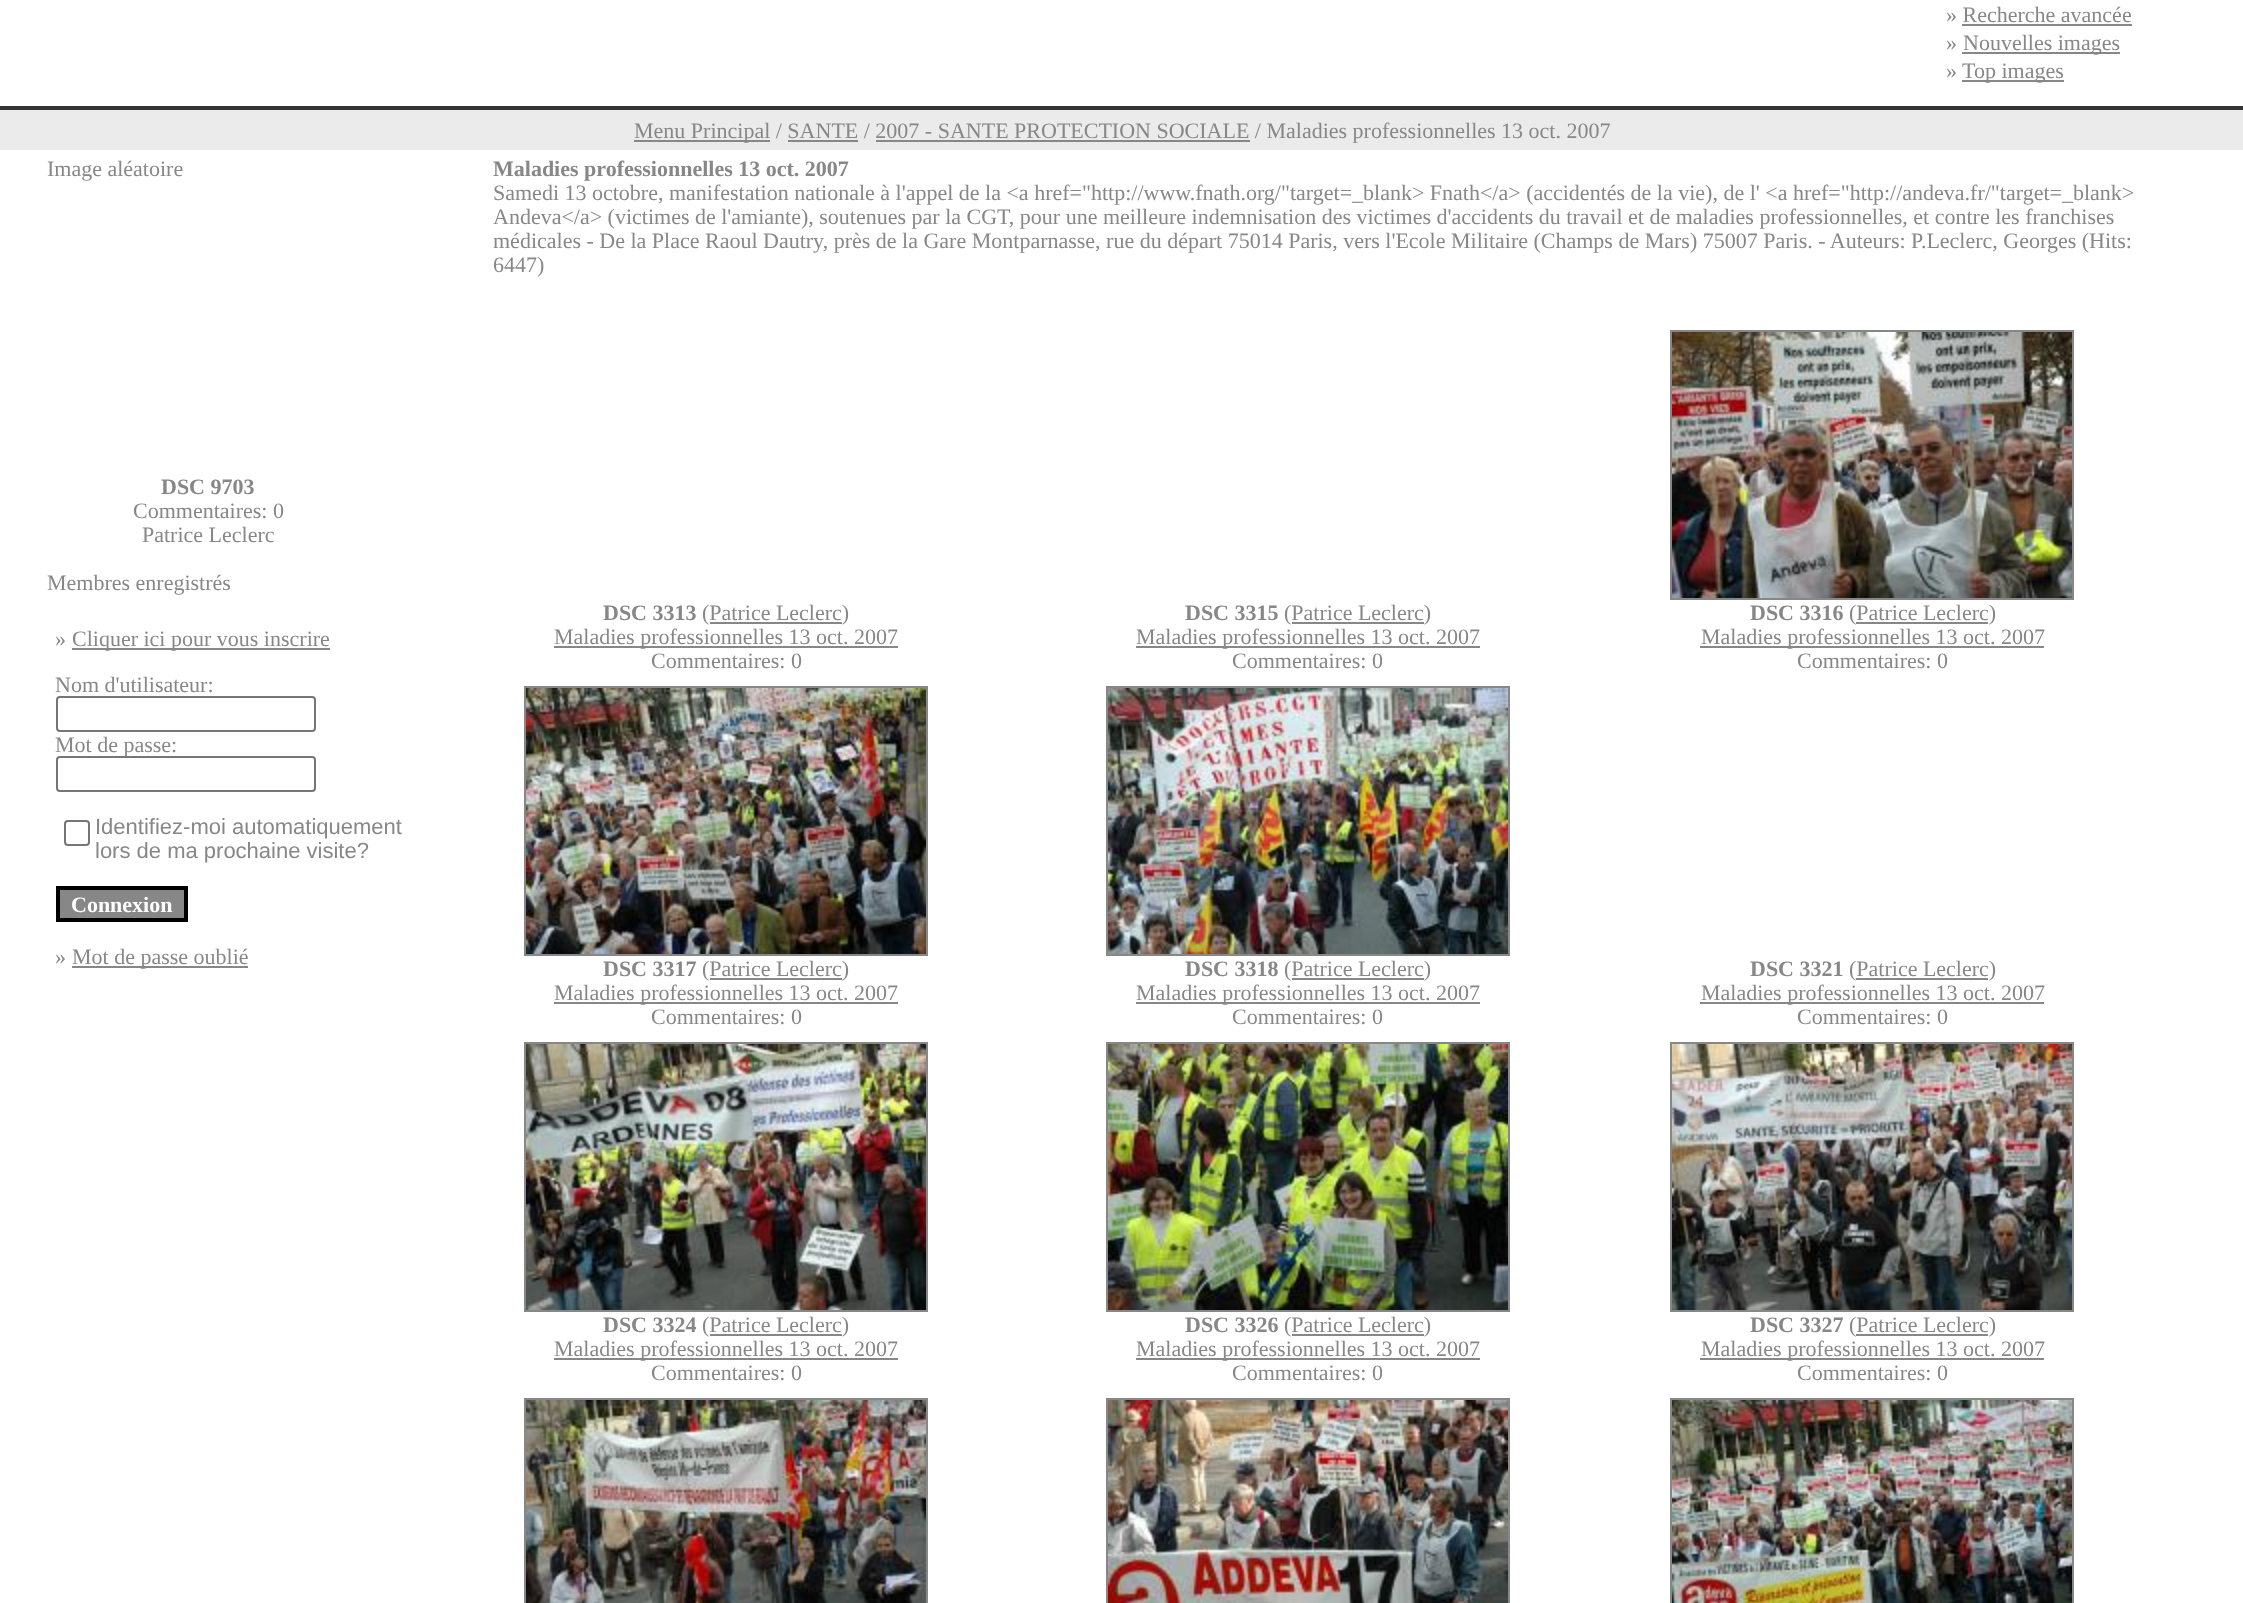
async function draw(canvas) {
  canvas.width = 2243;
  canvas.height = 1603;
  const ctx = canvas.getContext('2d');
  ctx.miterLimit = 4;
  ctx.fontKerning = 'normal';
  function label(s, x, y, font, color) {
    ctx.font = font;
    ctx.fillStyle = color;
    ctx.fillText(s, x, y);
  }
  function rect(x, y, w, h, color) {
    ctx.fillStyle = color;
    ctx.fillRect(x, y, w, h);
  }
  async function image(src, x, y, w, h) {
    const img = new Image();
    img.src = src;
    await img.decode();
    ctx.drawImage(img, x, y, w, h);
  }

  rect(0, 0, 2243, 1603, '#fff');
  label('» Recherche avancée', 1946, 22, '22px Liberation Serif', '#878787');
  rect(1962, 24, 170, 2, '#878787');
  label('»', 1946, 50, '22px Liberation Serif', '#878787');
  rect(1962, 52, 158, 2, '#878787');
  label('Nouvelles images', 1963, 50, '22px Liberation Serif', '#878787');
  label('»', 1946, 78, '22px Liberation Serif', '#878787');
  rect(1962, 80, 102, 2, '#878787');
  label('Top images', 1962, 78, '22px Liberation Serif', '#878787');
  rect(0, 106, 2243, 4, '#333');
  rect(0, 110, 2243, 40, '#ebebeb');
  rect(634, 140, 136, 2, '#878787');
  label('Menu Principal / SANTE / 2007 - SANTE PROTECTION SOCIALE / Maladies professionnelles 13 oct. 2007', 634, 138, '22px Liberation Serif', '#878787');
  rect(788, 140, 70, 2, '#878787');
  rect(876, 140, 374, 2, '#878787');
  label('Image aléatoire', 47, 176, '22px Liberation Serif', '#878787');
  label('DSC 9703', 161, 494, 'bold 22px Liberation Serif', '#878787');
  label('Commentaires: 0', 133, 518, '22px Liberation Serif', '#878787');
  label('Patrice Leclerc', 142, 542, '22px Liberation Serif', '#878787');
  label('Membres enregistrés', 47, 590, '22px Liberation Serif', '#878787');
  label('»', 55, 646, '22px Liberation Serif', '#878787');
  rect(72, 648, 258, 2, '#878787');
  label('Cliquer ici pour vous inscrire', 72, 646, '22px Liberation Serif', '#878787');
  label('Nom d\'utilisateur:', 55, 692, '22px Liberation Serif', '#878787');
  ctx.beginPath();
  ctx.roundRect(57, 697, 258, 34, 3);
  ctx.strokeStyle = '#767676';
  ctx.lineWidth = 2;
  ctx.stroke();
  label('Mot de passe:', 55, 752, '22px Liberation Serif', '#878787');
  ctx.fillStyle = '#fff';
  ctx.beginPath();
  ctx.roundRect(57, 757, 258, 34, 3);
  ctx.fill();
  ctx.stroke();
  ctx.beginPath();
  ctx.roundRect(65, 821, 24, 24, 3);
  ctx.stroke();
  label('Identifiez-moi automatiquement', 95, 834, '22px Liberation Sans', '#878787');
  label('lors de ma prochaine visite?', 95, 858, '22px Liberation Sans', '#878787');
  ctx.beginPath();
  ctx.rect(58, 888, 128, 32);
  ctx.fill();
  ctx.strokeStyle = '#000';
  ctx.lineWidth = 4;
  ctx.stroke();
  label('Connexion', 71, 912, 'bold 22px Liberation Serif', '#fff');
  label('»', 55, 964, '22px Liberation Serif', '#878787');
  rect(72, 966, 176, 2, '#878787');
  label('Mot de passe oublié', 72, 964, '22px Liberation Serif', '#878787');
  label('Maladies professionnelles 13 oct. 2007', 493, 176, 'bold 22px Liberation Serif', '#878787');
  label('Samedi 13 octobre, manifestation nationale à l\'appel de la <a href="http://www.fnath.org/"target=_blank> Fnath<\/a> (accidentés de la vie), de l\' <a href="http://andeva.fr/"target=_blank>', 493, 200, '22px Liberation Serif', '#878787');
  label('Andeva<\/a> (victimes de l\'amiante), soutenues par la CGT, pour une meilleure indemnisation des victimes d\'accidents du travail et de maladies professionnelles, et contre les franchises', 493, 224, '22px Liberation Serif', '#878787');
  label('médicales - De la Place Raoul Dautry, près de la Gare Montparnasse, rue du départ 75014 Paris, vers l\'Ecole Militaire (Champs de Mars) 75007 Paris. - Auteurs: P.Leclerc, Georges (Hits:', 493, 248, '22px Liberation Serif', '#878787');
  label('6447)', 493, 272, '22px Liberation Serif', '#878787');
  label('DSC 3313', 603, 620, 'bold 22px Liberation Serif', '#878787');
  label('(Patrice Leclerc)', 702, 620, '22px Liberation Serif', '#878787');
  rect(710, 622, 132, 2, '#878787');
  rect(554, 646, 344, 2, '#878787');
  label('Maladies professionnelles 13 oct. 2007', 554, 644, '22px Liberation Serif', '#878787');
  label('Commentaires: 0', 651, 668, '22px Liberation Serif', '#878787');
  label('DSC 3315', 1185, 620, 'bold 22px Liberation Serif', '#878787');
  label('(Patrice Leclerc)', 1284, 620, '22px Liberation Serif', '#878787');
  rect(1292, 622, 132, 2, '#878787');
  rect(1136, 646, 344, 2, '#878787');
  label('Maladies professionnelles 13 oct. 2007', 1136, 644, '22px Liberation Serif', '#878787');
  label('Commentaires: 0', 1232, 668, '22px Liberation Serif', '#878787');
  ctx.strokeStyle = '#878787';
  ctx.lineWidth = 2;
  ctx.strokeRect(1671, 331, 402, 268);
  await image('assets/img1.png', 1672, 332, 400, 266);
  label('DSC 3316', 1750, 620, 'bold 22px Liberation Serif', '#878787');
  label('(Patrice Leclerc)', 1849, 620, '22px Liberation Serif', '#878787');
  rect(1856, 622, 132, 2, '#878787');
  rect(1700, 646, 344, 2, '#878787');
  label('Maladies professionnelles 13 oct. 2007', 1701, 644, '22px Liberation Serif', '#878787');
  label('Commentaires: 0', 1797, 668, '22px Liberation Serif', '#878787');
  ctx.strokeRect(525, 687, 402, 268);
  await image('assets/img2.png', 526, 688, 400, 266);
  label('DSC 3317', 603, 976, 'bold 22px Liberation Serif', '#878787');
  label('(Patrice Leclerc)', 702, 976, '22px Liberation Serif', '#878787');
  rect(710, 978, 132, 2, '#878787');
  rect(554, 1002, 344, 2, '#878787');
  label('Maladies professionnelles 13 oct. 2007', 554, 1000, '22px Liberation Serif', '#878787');
  label('Commentaires: 0', 651, 1024, '22px Liberation Serif', '#878787');
  ctx.strokeRect(1107, 687, 402, 268);
  await image('assets/img3.png', 1108, 688, 400, 266);
  label('DSC 3318', 1185, 976, 'bold 22px Liberation Serif', '#878787');
  label('(Patrice Leclerc)', 1284, 976, '22px Liberation Serif', '#878787');
  rect(1292, 978, 132, 2, '#878787');
  rect(1136, 1002, 344, 2, '#878787');
  label('Maladies professionnelles 13 oct. 2007', 1136, 1000, '22px Liberation Serif', '#878787');
  label('Commentaires: 0', 1232, 1024, '22px Liberation Serif', '#878787');
  label('DSC 3321', 1750, 976, 'bold 22px Liberation Serif', '#878787');
  label('(Patrice Leclerc)', 1849, 976, '22px Liberation Serif', '#878787');
  rect(1856, 978, 132, 2, '#878787');
  rect(1700, 1002, 344, 2, '#878787');
  label('Maladies professionnelles 13 oct. 2007', 1701, 1000, '22px Liberation Serif', '#878787');
  label('Commentaires: 0', 1797, 1024, '22px Liberation Serif', '#878787');
  ctx.strokeRect(525, 1043, 402, 268);
  await image('assets/img4.png', 526, 1044, 400, 266);
  label('DSC 3324', 603, 1332, 'bold 22px Liberation Serif', '#878787');
  label('(Patrice Leclerc)', 702, 1332, '22px Liberation Serif', '#878787');
  rect(710, 1334, 132, 2, '#878787');
  rect(554, 1358, 344, 2, '#878787');
  label('Maladies professionnelles 13 oct. 2007', 554, 1356, '22px Liberation Serif', '#878787');
  label('Commentaires: 0', 651, 1380, '22px Liberation Serif', '#878787');
  ctx.strokeRect(1107, 1043, 402, 268);
  await image('assets/img5.png', 1108, 1044, 400, 266);
  label('DSC 3326', 1185, 1332, 'bold 22px Liberation Serif', '#878787');
  label('(Patrice Leclerc)', 1284, 1332, '22px Liberation Serif', '#878787');
  rect(1292, 1334, 132, 2, '#878787');
  rect(1136, 1358, 344, 2, '#878787');
  label('Maladies professionnelles 13 oct. 2007', 1136, 1356, '22px Liberation Serif', '#878787');
  label('Commentaires: 0', 1232, 1380, '22px Liberation Serif', '#878787');
  ctx.strokeRect(1671, 1043, 402, 268);
  await image('assets/img6.png', 1672, 1044, 400, 266);
  label('DSC 3327', 1750, 1332, 'bold 22px Liberation Serif', '#878787');
  label('(Patrice Leclerc)', 1849, 1332, '22px Liberation Serif', '#878787');
  rect(1856, 1334, 132, 2, '#878787');
  rect(1700, 1358, 344, 2, '#878787');
  label('Maladies professionnelles 13 oct. 2007', 1701, 1356, '22px Liberation Serif', '#878787');
  label('Commentaires: 0', 1797, 1380, '22px Liberation Serif', '#878787');
  ctx.strokeRect(525, 1399, 402, 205);
  await image('assets/img7.png', 526, 1400, 400, 203);
  ctx.strokeRect(1107, 1399, 402, 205);
  await image('assets/img8.png', 1108, 1400, 400, 203);
  ctx.strokeRect(1671, 1399, 402, 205);
  await image('assets/img9.png', 1672, 1400, 400, 203);
}

draw(document.querySelector('canvas'));
